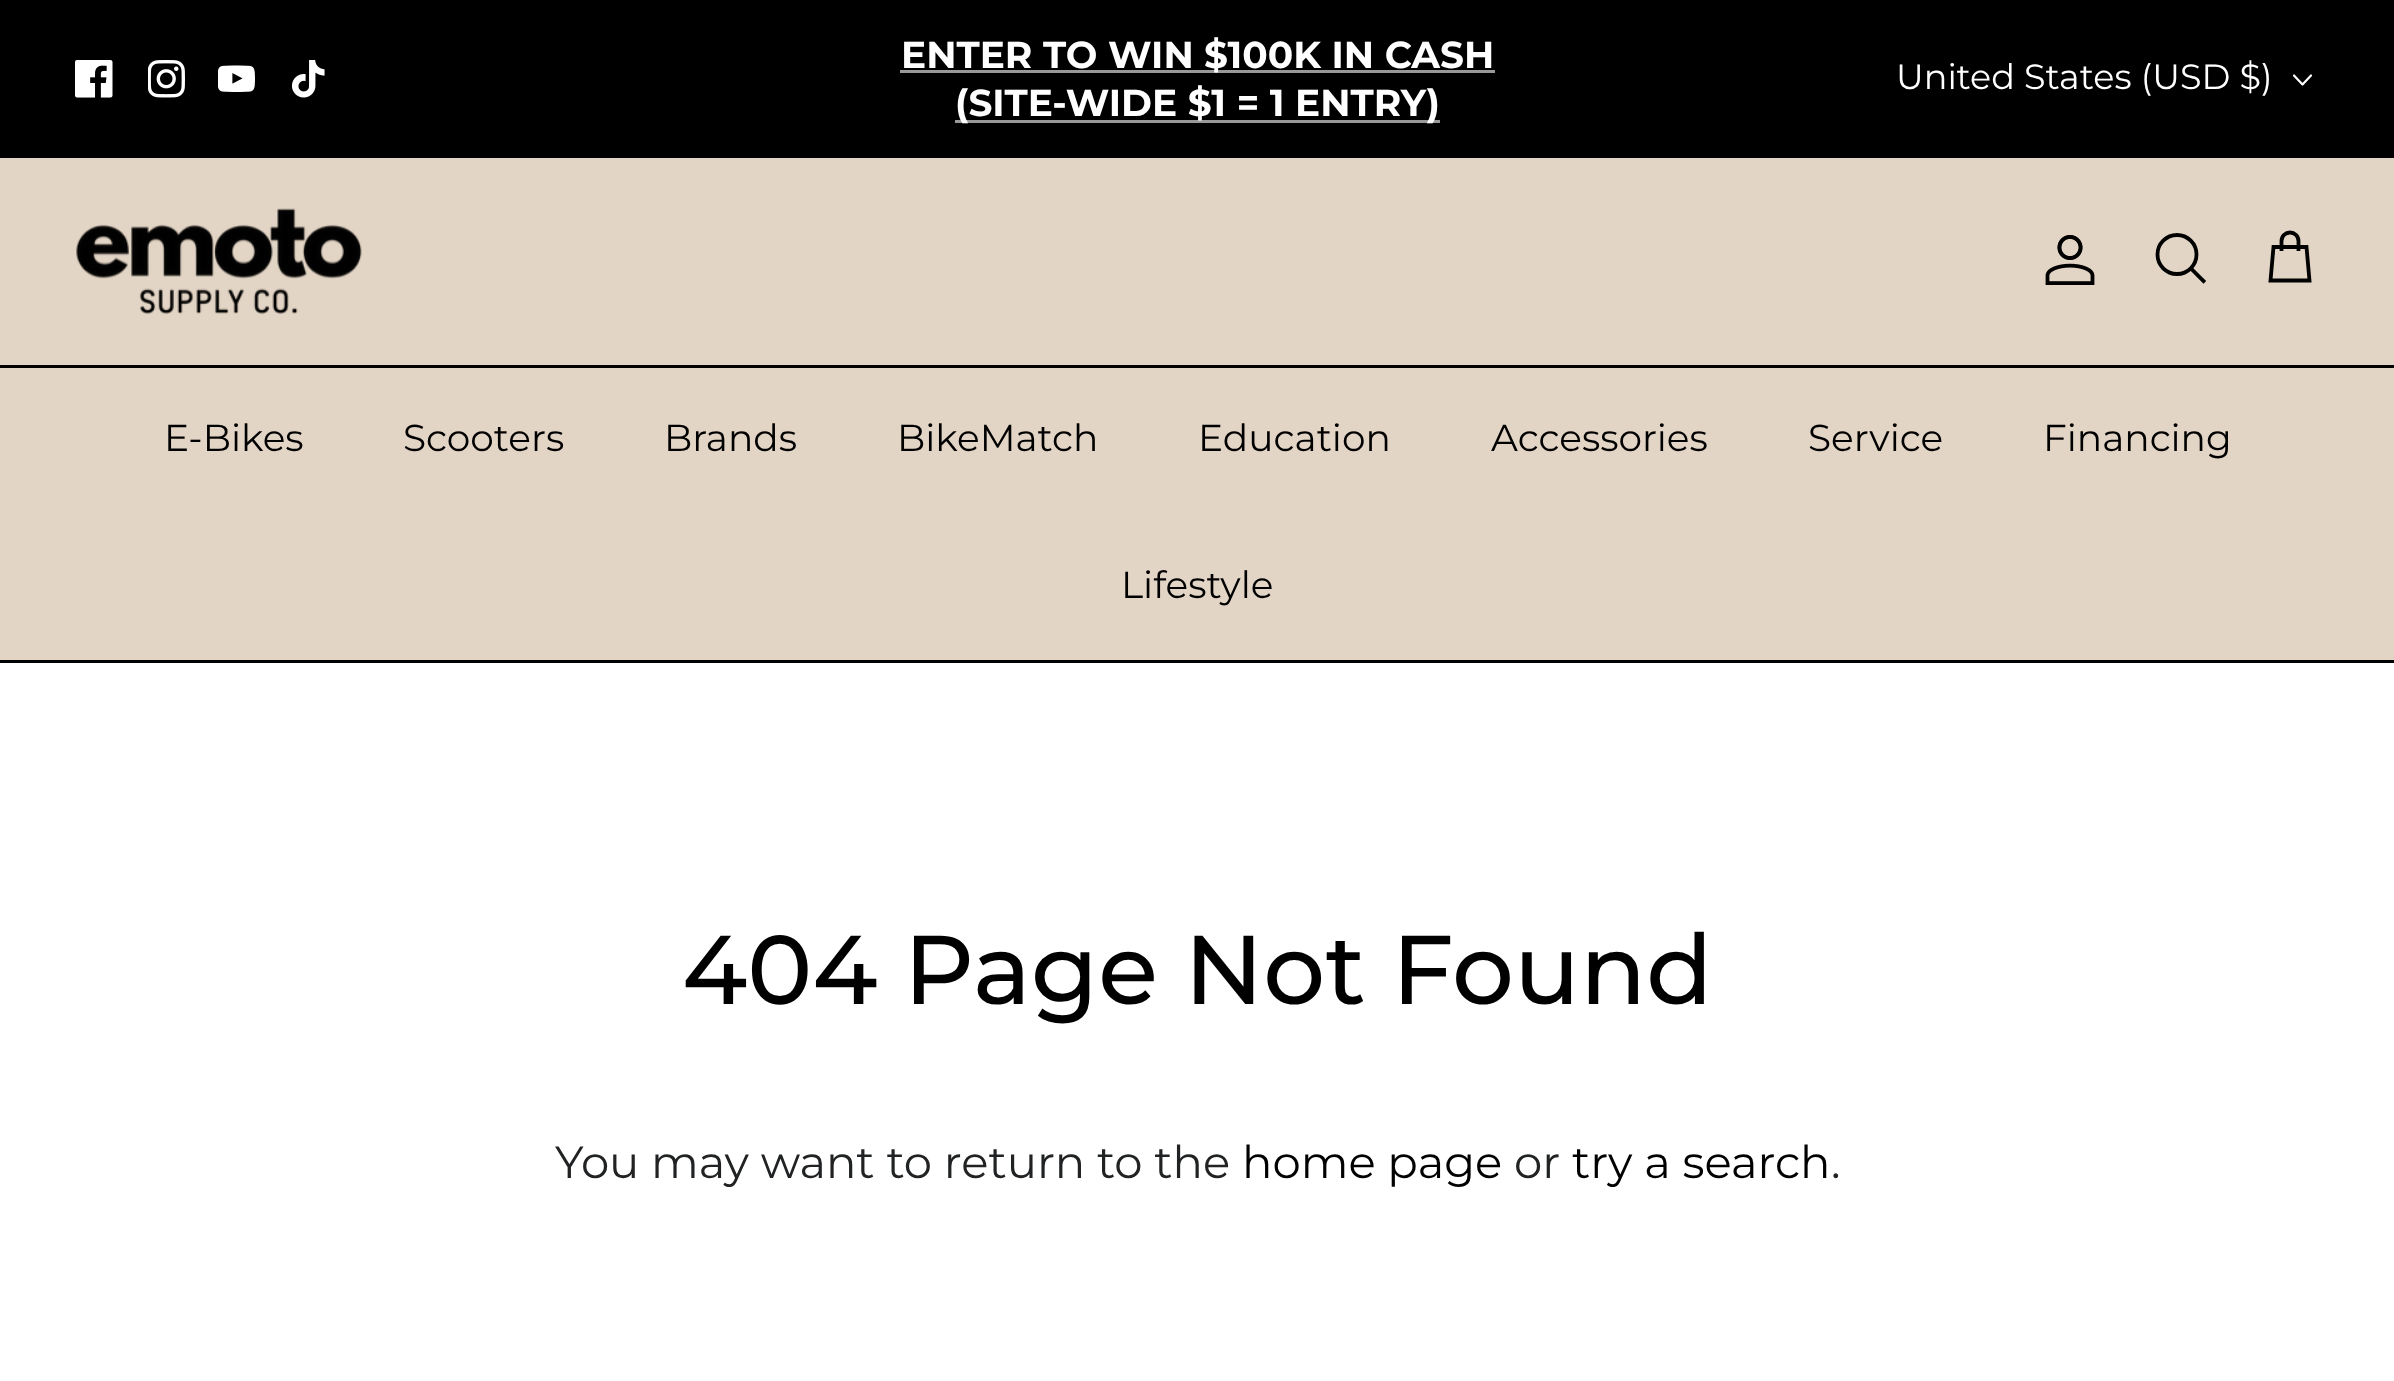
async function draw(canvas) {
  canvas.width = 2394;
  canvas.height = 1381;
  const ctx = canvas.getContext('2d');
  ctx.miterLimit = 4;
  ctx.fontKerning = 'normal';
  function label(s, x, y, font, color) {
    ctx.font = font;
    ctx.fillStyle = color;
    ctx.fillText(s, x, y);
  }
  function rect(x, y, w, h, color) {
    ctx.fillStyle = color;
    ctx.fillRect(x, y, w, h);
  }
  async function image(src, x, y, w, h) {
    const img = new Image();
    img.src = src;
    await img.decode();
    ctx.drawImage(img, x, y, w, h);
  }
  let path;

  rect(0, 0, 2394, 1381, '#fff');
  rect(0, 0, 2394, 158, '#000');
  await image('assets/img1.png', 75, 60, 38, 38);
  await image('assets/img2.png', 148, 60, 37, 38);
  await image('assets/img3.png', 218, 65, 37, 27);
  await image('assets/img4.png', 292, 60, 33, 38);
  label('ENTER TO WIN', 901, 68, 'bold 37.5px Montserrat', '#fff');
  rect(900, 70, 595, 3, '#999');
  label('$100K IN CASH', 1204, 68, 'bold 37.5px Montserrat', '#fff');
  rect(955, 120, 485, 3, '#999');
  label('(SITE-WIDE $1 = 1 ENTRY)', 955, 116, 'bold 37.5px Montserrat', '#fff');
  label('United States (USD $)', 1896, 89, '35px Montserrat', '#fff');
  path = new Path2D('M2294 75.5L2302.5 84.5L2311 75.5');
  ctx.strokeStyle = '#fff';
  ctx.lineWidth = 2.2;
  ctx.lineCap = 'round';
  ctx.lineJoin = 'round';
  ctx.stroke(path);
  rect(0, 158, 2394, 207, '#e3d5c5');
  rect(0, 365, 2394, 3, '#000');
  await image('assets/img5.png', 76, 208, 286, 106);
  await image('assets/img6.png', 2045, 235, 50, 50);
  ctx.beginPath();
  ctx.arc(2177, 254.5, 19.5, 0, 2 * Math.PI);
  ctx.strokeStyle = '#000';
  ctx.lineWidth = 3.8;
  ctx.stroke();
  path = new Path2D('M2192.5 270L2203.5 281');
  ctx.lineCap = 'square';
  ctx.lineJoin = 'miter';
  ctx.stroke(path);
  path = new Path2D('M2298.5 251V241C2298.5 236 2294.5 232.5 2290 232.5C2285.5 232.5 2281.5 236 2281.5 241V251M2273.5 247H2306.5L2309.5 280.5H2270.5Z');
  ctx.lineCap = 'butt';
  ctx.stroke(path);
  rect(0, 660, 2394, 3, '#000');
  rect(0, 368, 2394, 292, '#e3d5c5');
  label('E-Bikes', 164, 451, '37.5px Montserrat', '#000');
  label('Scooters', 403, 451, '37.5px Montserrat', '#000');
  label('Brands', 664, 451, '37.5px Montserrat', '#000');
  label('BikeMatch', 897, 451, '37.5px Montserrat', '#000');
  label('Education', 1198, 451, '37.5px Montserrat', '#000');
  label('Accessories', 1491, 451, '37.5px Montserrat', '#000');
  label('Service', 1808, 451, '37.5px Montserrat', '#000');
  label('Financing', 2043, 451, '37.5px Montserrat', '#000');
  label('Lifestyle', 1121, 598, '37.5px Montserrat', '#000');
  label('404 Page Not Found', 682, 1004, '500 97.5px Montserrat', '#000');
  label('You may want to return to the', 555, 1178, '45px Montserrat', '#202223');
  label('home page', 1242, 1178, '45px Montserrat', '#000');
  label('or', 1514, 1178, '45px Montserrat', '#202223');
  label('try a search', 1572, 1178, '45px Montserrat', '#000');
  label('.', 1831, 1178, '45px Montserrat', '#202223');
}

draw(document.querySelector('canvas'));
